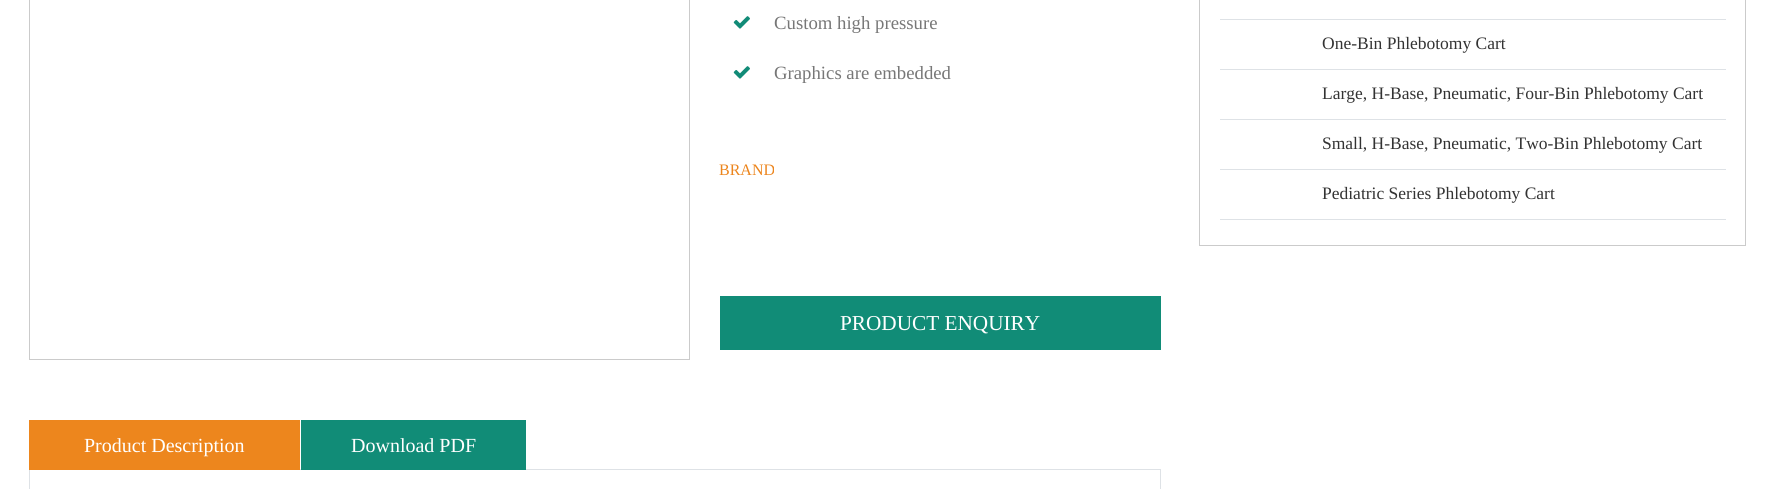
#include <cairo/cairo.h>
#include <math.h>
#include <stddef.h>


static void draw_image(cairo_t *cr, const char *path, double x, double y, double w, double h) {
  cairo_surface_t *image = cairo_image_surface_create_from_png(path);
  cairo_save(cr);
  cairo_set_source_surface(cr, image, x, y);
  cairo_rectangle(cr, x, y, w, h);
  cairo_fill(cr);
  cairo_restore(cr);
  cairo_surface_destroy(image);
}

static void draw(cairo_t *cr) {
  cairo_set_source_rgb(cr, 1, 1, 1);
  cairo_paint(cr);
  cairo_rectangle(cr, 29.5, -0.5, 660, 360);
  cairo_set_source_rgb(cr, 203 / 255.0, 203 / 255.0, 203 / 255.0);
  cairo_set_line_width(cr, 1);
  cairo_stroke(cr);
  draw_image(cr, "images/1.png", 733, 16, 17, 13);
  draw_image(cr, "images/1.png", 733, 66, 17, 13);
  cairo_set_source_rgb(cr, 17 / 255.0, 140 / 255.0, 119 / 255.0);
  cairo_rectangle(cr, 720, 296, 441, 54);
  cairo_fill(cr);
  cairo_rectangle(cr, 29.5, 469.5, 1131, 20);
  cairo_set_source_rgb(cr, 222 / 255.0, 226 / 255.0, 230 / 255.0);
  cairo_stroke(cr);
  cairo_set_source_rgb(cr, 237 / 255.0, 134 / 255.0, 29 / 255.0);
  cairo_rectangle(cr, 29, 420, 271, 50);
  cairo_fill(cr);
  cairo_set_source_rgb(cr, 17 / 255.0, 140 / 255.0, 119 / 255.0);
  cairo_rectangle(cr, 301, 420, 225, 50);
  cairo_fill(cr);
  cairo_rectangle(cr, 1199.5, -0.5, 546, 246);
  cairo_set_source_rgb(cr, 203 / 255.0, 203 / 255.0, 203 / 255.0);
  cairo_stroke(cr);
  cairo_set_source_rgb(cr, 222 / 255.0, 226 / 255.0, 230 / 255.0);
  cairo_rectangle(cr, 1220, 19, 506, 1);
  cairo_fill(cr);
  cairo_rectangle(cr, 1220, 69, 506, 1);
  cairo_fill(cr);
  cairo_rectangle(cr, 1220, 119, 506, 1);
  cairo_fill(cr);
  cairo_rectangle(cr, 1220, 169, 506, 1);
  cairo_fill(cr);
  cairo_rectangle(cr, 1220, 219, 506, 1);
  cairo_fill(cr);
  cairo_select_font_face(cr, "Liberation Serif", CAIRO_FONT_SLANT_NORMAL, CAIRO_FONT_WEIGHT_NORMAL);
  cairo_set_font_size(cr, 18.75);
  cairo_set_source_rgb(cr, 119 / 255.0, 119 / 255.0, 119 / 255.0);
  cairo_move_to(cr, 774, 29);
  cairo_show_text(cr, "Custom high pressure");
  cairo_move_to(cr, 774, 79);
  cairo_show_text(cr, "Graphics are embedded");
  cairo_set_font_size(cr, 16);
  cairo_set_source_rgb(cr, 236 / 255.0, 133 / 255.0, 29 / 255.0);
  cairo_move_to(cr, 719, 175);
  cairo_show_text(cr, "BRAND");
  cairo_set_font_size(cr, 21.25);
  cairo_set_source_rgb(cr, 1, 1, 1);
  cairo_move_to(cr, 840, 330);
  cairo_show_text(cr, "PRODUCT ENQUIRY");
  cairo_set_font_size(cr, 20);
  cairo_move_to(cr, 84, 452);
  cairo_show_text(cr, "Product Description");
  cairo_move_to(cr, 351, 452);
  cairo_show_text(cr, "Download PDF");
  cairo_set_font_size(cr, 17.5);
  cairo_set_source_rgb(cr, 51 / 255.0, 51 / 255.0, 51 / 255.0);
  cairo_move_to(cr, 1322, 49);
  cairo_show_text(cr, "One-Bin Phlebotomy Cart");
  cairo_move_to(cr, 1322, 99);
  cairo_show_text(cr, "Large, H-Base, Pneumatic, Four-Bin Phlebotomy Cart");
  cairo_move_to(cr, 1322, 149);
  cairo_show_text(cr, "Small, H-Base, Pneumatic, Two-Bin Phlebotomy Cart");
  cairo_move_to(cr, 1322, 199);
  cairo_show_text(cr, "Pediatric Series Phlebotomy Cart");
}

int main(void) {
  cairo_surface_t *surface = cairo_image_surface_create(CAIRO_FORMAT_RGB24, 1775, 489);
  cairo_t *cr = cairo_create(surface);
  cairo_font_options_t *options = cairo_font_options_create();
  cairo_font_options_set_hint_metrics(options, CAIRO_HINT_METRICS_OFF);
  cairo_font_options_set_hint_style(options, CAIRO_HINT_STYLE_NONE);
  cairo_set_font_options(cr, options);
  cairo_set_miter_limit(cr, 4);
  draw(cr);
  cairo_surface_write_to_png(surface, "out.png");
  cairo_font_options_destroy(options);
  cairo_destroy(cr);
  cairo_surface_destroy(surface);
  return 0;
}
